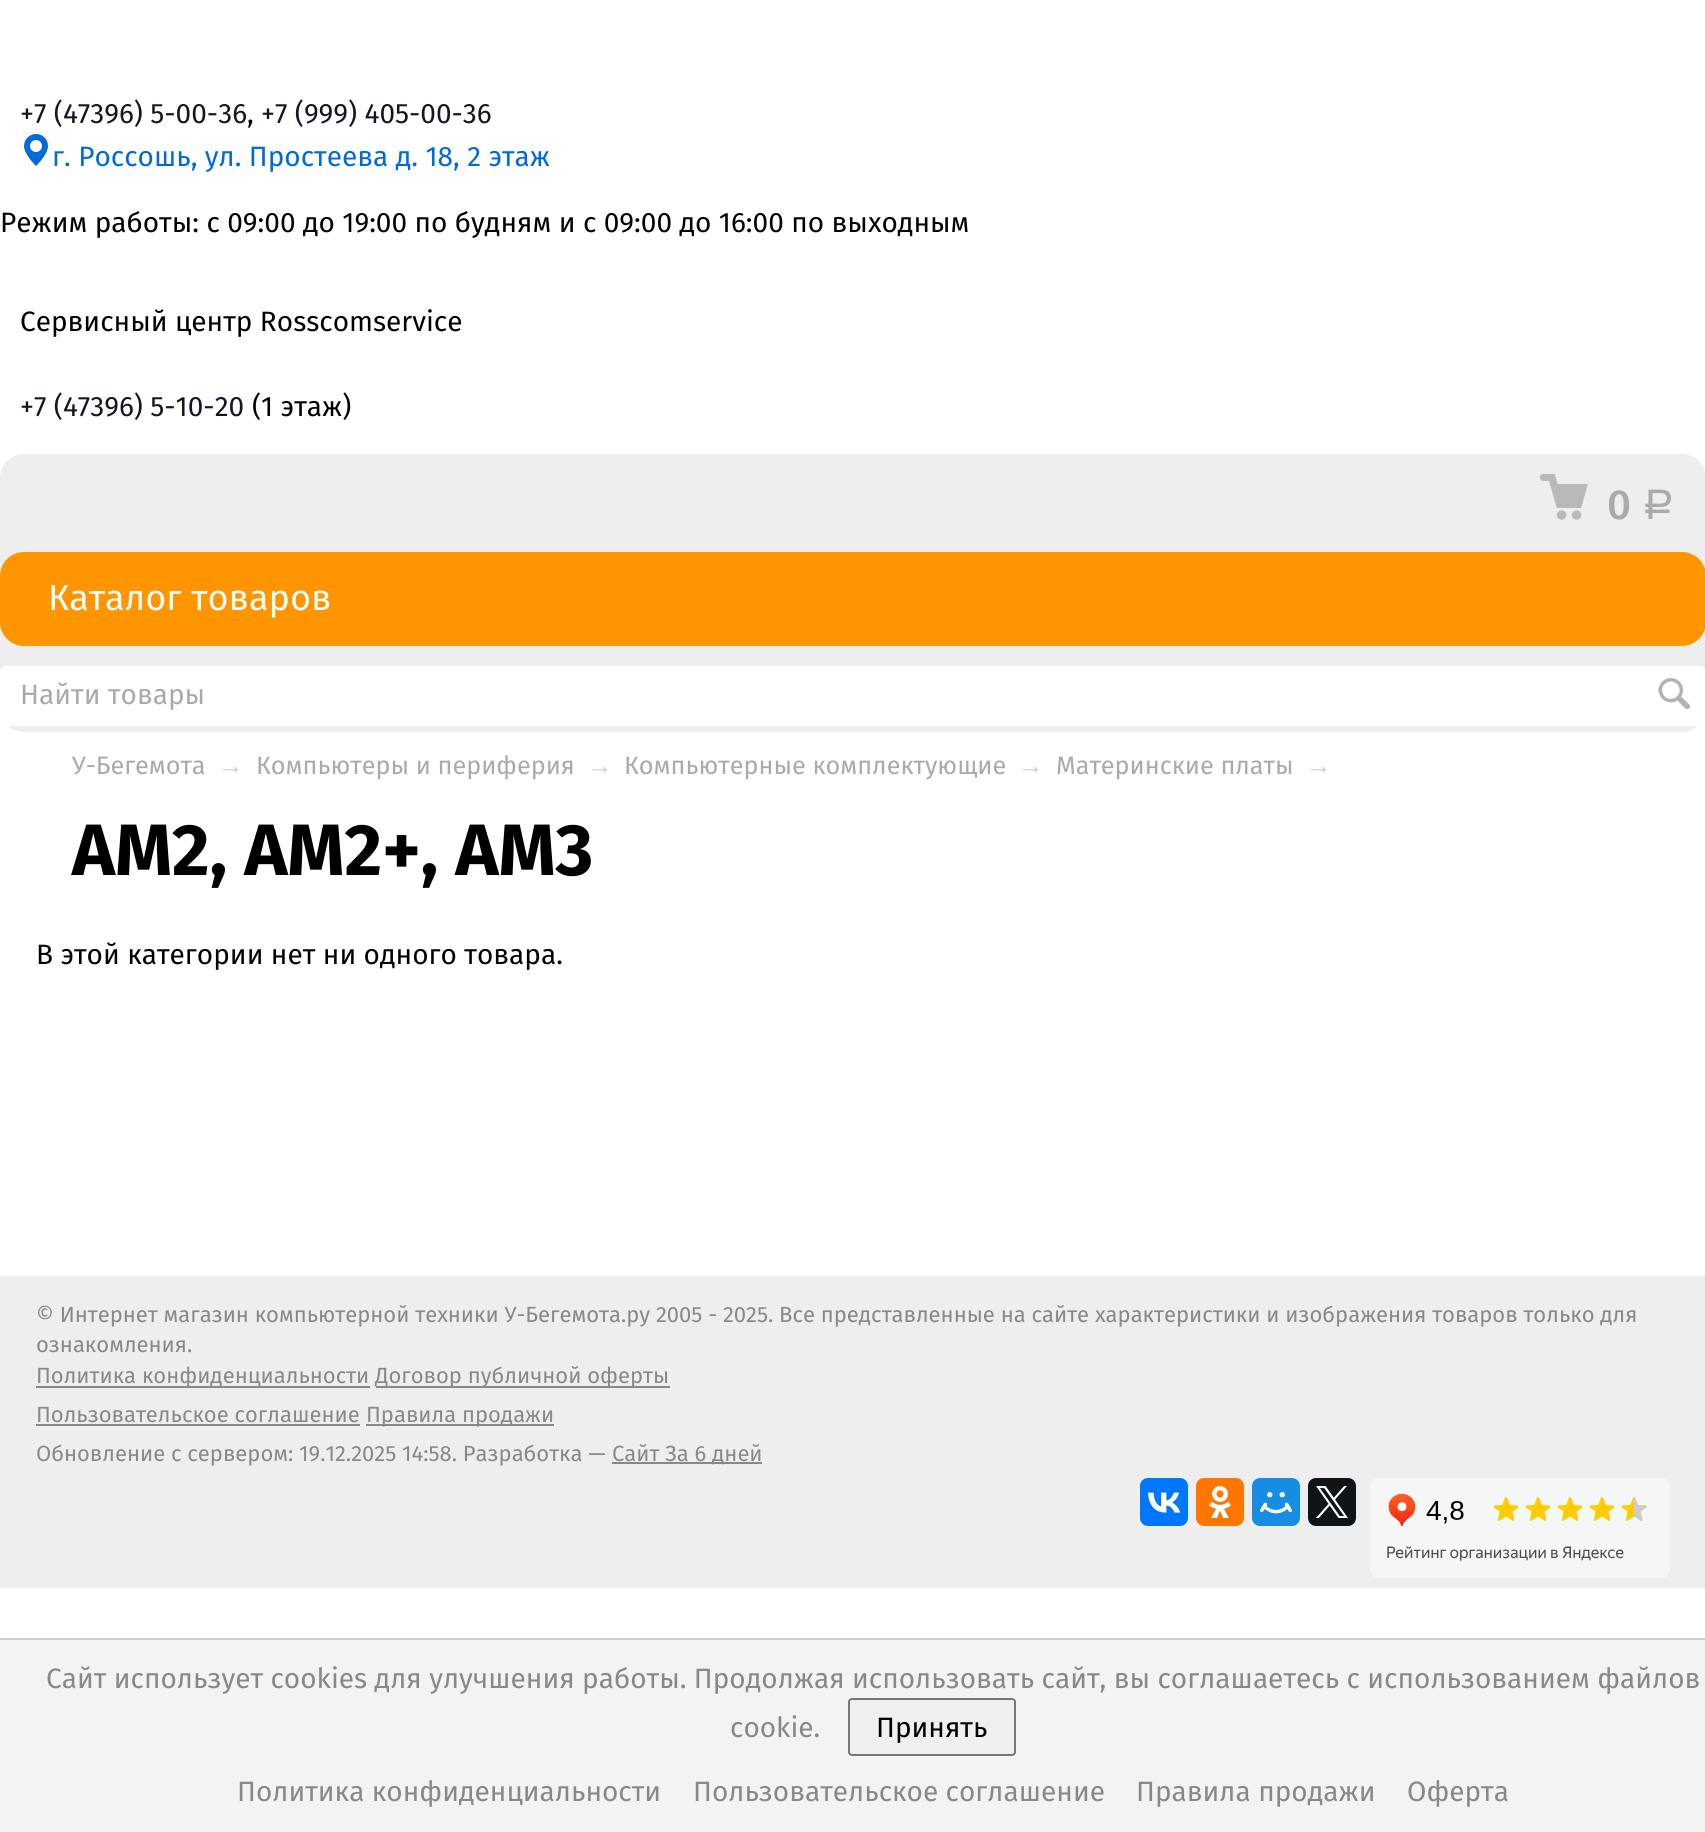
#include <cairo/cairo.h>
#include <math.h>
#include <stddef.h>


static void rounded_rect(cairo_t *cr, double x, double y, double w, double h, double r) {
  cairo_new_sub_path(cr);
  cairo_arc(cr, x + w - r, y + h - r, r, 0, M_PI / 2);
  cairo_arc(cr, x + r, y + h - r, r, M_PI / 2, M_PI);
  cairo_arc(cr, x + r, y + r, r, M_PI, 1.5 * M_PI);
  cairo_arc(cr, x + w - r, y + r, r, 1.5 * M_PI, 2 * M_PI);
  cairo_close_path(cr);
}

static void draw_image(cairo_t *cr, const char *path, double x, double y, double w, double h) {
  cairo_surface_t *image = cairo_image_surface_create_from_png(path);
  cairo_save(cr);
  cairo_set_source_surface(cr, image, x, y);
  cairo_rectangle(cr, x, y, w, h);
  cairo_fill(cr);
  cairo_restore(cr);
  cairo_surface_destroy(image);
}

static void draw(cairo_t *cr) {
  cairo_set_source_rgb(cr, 1, 1, 1);
  cairo_paint(cr);
  draw_image(cr, "images/1.png", 24, 134, 24, 32);
  cairo_set_source_rgb(cr, 238 / 255.0, 238 / 255.0, 238 / 255.0);
  rounded_rect(cr, 0, 454, 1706, 278, 24);
  cairo_fill(cr);
  draw_image(cr, "images/2.png", 1540, 474, 48, 46);
  cairo_set_source_rgb(cr, 1, 150 / 255.0, 1 / 255.0);
  rounded_rect(cr, 0, 552, 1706, 94, 24);
  cairo_fill(cr);
  cairo_set_source_rgb(cr, 1, 1, 1);
  rounded_rect(cr, 0, 666, 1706, 60, 6);
  cairo_fill(cr);
  draw_image(cr, "images/3.png", 1658, 678, 32, 31);
  cairo_set_source_rgb(cr, 238 / 255.0, 238 / 255.0, 238 / 255.0);
  cairo_rectangle(cr, 0, 1276, 1705, 312);
  cairo_fill(cr);
  cairo_set_source_rgb(cr, 136 / 255.0, 136 / 255.0, 136 / 255.0);
  cairo_rectangle(cr, 36, 1386, 334, 2);
  cairo_fill(cr);
  cairo_rectangle(cr, 376, 1386, 294, 2);
  cairo_fill(cr);
  cairo_rectangle(cr, 36, 1424, 324, 2);
  cairo_fill(cr);
  cairo_rectangle(cr, 366, 1424, 188, 2);
  cairo_fill(cr);
  cairo_rectangle(cr, 612, 1462, 150, 2);
  cairo_fill(cr);
  cairo_set_source_rgb(cr, 0, 119 / 255.0, 1);
  rounded_rect(cr, 1140, 1478, 48, 48, 8);
  cairo_fill(cr);
  draw_image(cr, "images/4.png", 1148, 1492, 33, 21);
  cairo_set_source_rgb(cr, 1, 119 / 255.0, 0);
  rounded_rect(cr, 1196, 1478, 48, 48, 8);
  cairo_fill(cr);
  draw_image(cr, "images/5.png", 1209, 1486, 22, 32);
  cairo_set_source_rgb(cr, 22 / 255.0, 141 / 255.0, 226 / 255.0);
  rounded_rect(cr, 1252, 1478, 48, 48, 8);
  cairo_fill(cr);
  draw_image(cr, "images/6.png", 1260, 1492, 32, 22);
  cairo_set_source_rgb(cr, 15 / 255.0, 20 / 255.0, 25 / 255.0);
  rounded_rect(cr, 1308, 1478, 48, 48, 8);
  cairo_fill(cr);
  draw_image(cr, "images/7.png", 1316, 1486, 32, 32);
  draw_image(cr, "images/8.png", 1370, 1478, 300, 100);
  cairo_set_source_rgb(cr, 243 / 255.0, 243 / 255.0, 243 / 255.0);
  cairo_rectangle(cr, 0, 1640, 1705, 192);
  cairo_fill(cr);
  cairo_set_source_rgb(cr, 204 / 255.0, 204 / 255.0, 204 / 255.0);
  cairo_rectangle(cr, 0, 1638, 1705, 2);
  cairo_fill(cr);
  cairo_set_source_rgb(cr, 239 / 255.0, 239 / 255.0, 239 / 255.0);
  rounded_rect(cr, 849, 1699, 166, 56, 3);
  cairo_fill_preserve(cr);
  cairo_set_source_rgb(cr, 118 / 255.0, 118 / 255.0, 118 / 255.0);
  cairo_stroke(cr);
  cairo_select_font_face(cr, "Fira Sans", CAIRO_FONT_SLANT_NORMAL, CAIRO_FONT_WEIGHT_NORMAL);
  cairo_set_font_size(cr, 28);
  cairo_set_source_rgb(cr, 21 / 255.0, 21 / 255.0, 40 / 255.0);
  cairo_move_to(cr, 20, 123);
  cairo_show_text(cr, "+7 (47396) 5-00-36");
  cairo_set_source_rgb(cr, 0, 0, 0);
  cairo_move_to(cr, 247, 123);
  cairo_show_text(cr, ",");
  cairo_set_source_rgb(cr, 21 / 255.0, 21 / 255.0, 40 / 255.0);
  cairo_move_to(cr, 261, 123);
  cairo_show_text(cr, "+7 (999) 405-00-36");
  cairo_set_source_rgb(cr, 0, 107 / 255.0, 216 / 255.0);
  cairo_move_to(cr, 52, 166);
  cairo_show_text(cr, "г. Россошь, ул. Простеева д. 18, 2 этаж");
  cairo_set_source_rgb(cr, 0, 0, 0);
  cairo_move_to(cr, 0, 232);
  cairo_show_text(cr, "Режим работы: с 09:00 до 19:00 по будням и с 09:00 до 16:00 по выходным");
  cairo_move_to(cr, 20, 331);
  cairo_show_text(cr, "Сервисный центр Rosscomservice");
  cairo_set_source_rgb(cr, 21 / 255.0, 21 / 255.0, 40 / 255.0);
  cairo_move_to(cr, 20, 416);
  cairo_show_text(cr, "+7 (47396) 5-10-20");
  cairo_set_source_rgb(cr, 0, 0, 0);
  cairo_move_to(cr, 252, 416);
  cairo_show_text(cr, "(1 этаж)");
  cairo_select_font_face(cr, "Fira Sans Medium", CAIRO_FONT_SLANT_NORMAL, CAIRO_FONT_WEIGHT_NORMAL);
  cairo_set_font_size(cr, 42);
  cairo_set_source_rgb(cr, 170 / 255.0, 170 / 255.0, 170 / 255.0);
  cairo_move_to(cr, 1607, 519);
  cairo_show_text(cr, "0");
  cairo_select_font_face(cr, "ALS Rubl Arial", CAIRO_FONT_SLANT_NORMAL, CAIRO_FONT_WEIGHT_NORMAL);
  cairo_move_to(cr, 1642, 519);
  cairo_show_text(cr, "Р");
  cairo_select_font_face(cr, "Fira Sans", CAIRO_FONT_SLANT_NORMAL, CAIRO_FONT_WEIGHT_NORMAL);
  cairo_set_font_size(cr, 36);
  cairo_set_source_rgb(cr, 1, 1, 1);
  cairo_move_to(cr, 48, 610);
  cairo_show_text(cr, "Каталог товаров");
  cairo_set_font_size(cr, 28);
  cairo_set_source_rgb(cr, 170 / 255.0, 170 / 255.0, 170 / 255.0);
  cairo_move_to(cr, 20, 704);
  cairo_show_text(cr, "Найти товары");
  cairo_set_font_size(cr, 25.25);
  cairo_move_to(cr, 72, 774);
  cairo_show_text(cr, "У-Бегемота");
  cairo_select_font_face(cr, "Liberation Sans", CAIRO_FONT_SLANT_NORMAL, CAIRO_FONT_WEIGHT_NORMAL);
  cairo_set_source_rgb(cr, 204 / 255.0, 204 / 255.0, 204 / 255.0);
  cairo_move_to(cr, 218, 774);
  cairo_show_text(cr, "→");
  cairo_select_font_face(cr, "Fira Sans", CAIRO_FONT_SLANT_NORMAL, CAIRO_FONT_WEIGHT_NORMAL);
  cairo_set_source_rgb(cr, 170 / 255.0, 170 / 255.0, 170 / 255.0);
  cairo_move_to(cr, 256, 774);
  cairo_show_text(cr, "Компьютеры и периферия");
  cairo_select_font_face(cr, "Liberation Sans", CAIRO_FONT_SLANT_NORMAL, CAIRO_FONT_WEIGHT_NORMAL);
  cairo_set_source_rgb(cr, 204 / 255.0, 204 / 255.0, 204 / 255.0);
  cairo_move_to(cr, 587, 774);
  cairo_show_text(cr, "→");
  cairo_select_font_face(cr, "Fira Sans", CAIRO_FONT_SLANT_NORMAL, CAIRO_FONT_WEIGHT_NORMAL);
  cairo_set_source_rgb(cr, 170 / 255.0, 170 / 255.0, 170 / 255.0);
  cairo_move_to(cr, 624, 774);
  cairo_show_text(cr, "Компьютерные комплектующие");
  cairo_select_font_face(cr, "Liberation Sans", CAIRO_FONT_SLANT_NORMAL, CAIRO_FONT_WEIGHT_NORMAL);
  cairo_set_source_rgb(cr, 204 / 255.0, 204 / 255.0, 204 / 255.0);
  cairo_move_to(cr, 1018, 774);
  cairo_show_text(cr, "→");
  cairo_select_font_face(cr, "Fira Sans", CAIRO_FONT_SLANT_NORMAL, CAIRO_FONT_WEIGHT_NORMAL);
  cairo_set_source_rgb(cr, 170 / 255.0, 170 / 255.0, 170 / 255.0);
  cairo_move_to(cr, 1056, 774);
  cairo_show_text(cr, "Материнские платы");
  cairo_select_font_face(cr, "Liberation Sans", CAIRO_FONT_SLANT_NORMAL, CAIRO_FONT_WEIGHT_NORMAL);
  cairo_set_source_rgb(cr, 204 / 255.0, 204 / 255.0, 204 / 255.0);
  cairo_move_to(cr, 1306, 774);
  cairo_show_text(cr, "→");
  cairo_select_font_face(cr, "Fira Sans", CAIRO_FONT_SLANT_NORMAL, CAIRO_FONT_WEIGHT_BOLD);
  cairo_set_font_size(cr, 72.75);
  cairo_set_source_rgb(cr, 0, 0, 0);
  cairo_move_to(cr, 72, 875);
  cairo_show_text(cr, "AM2, AM2+, AM3");
  cairo_select_font_face(cr, "Fira Sans", CAIRO_FONT_SLANT_NORMAL, CAIRO_FONT_WEIGHT_NORMAL);
  cairo_set_font_size(cr, 28);
  cairo_move_to(cr, 36, 964);
  cairo_show_text(cr, "В этой категории нет ни одного товара.");
  cairo_set_font_size(cr, 22);
  cairo_set_source_rgb(cr, 136 / 255.0, 136 / 255.0, 136 / 255.0);
  cairo_move_to(cr, 36, 1322);
  cairo_show_text(cr, "© Интернет магазин компьютерной техники У-Бегемота.ру 2005 - 2025. Все представленные на сайте характеристики и изображения товаров только для");
  cairo_move_to(cr, 36, 1352);
  cairo_show_text(cr, "ознакомления.");
  cairo_move_to(cr, 36, 1383);
  cairo_show_text(cr, "Политика конфиденциальности");
  cairo_move_to(cr, 375, 1383);
  cairo_show_text(cr, "Договор публичной оферты");
  cairo_move_to(cr, 36, 1422);
  cairo_show_text(cr, "Пользовательское соглашение");
  cairo_move_to(cr, 366, 1422);
  cairo_show_text(cr, "Правила продажи");
  cairo_move_to(cr, 36, 1461);
  cairo_show_text(cr, "Обновление с сервером: 19.12.2025 14:58. Разработка —");
  cairo_move_to(cr, 612, 1461);
  cairo_show_text(cr, "Сайт За 6 дней");
  cairo_set_font_size(cr, 28);
  cairo_move_to(cr, 46, 1688);
  cairo_show_text(cr, "Сайт использует cookies для улучшения работы. Продолжая использовать сайт, вы соглашаетесь с использованием файлов");
  cairo_move_to(cr, 730, 1737);
  cairo_show_text(cr, "cookie.");
  cairo_set_source_rgb(cr, 0, 0, 0);
  cairo_move_to(cr, 876, 1737);
  cairo_show_text(cr, "Принять");
  cairo_set_source_rgb(cr, 136 / 255.0, 136 / 255.0, 136 / 255.0);
  cairo_move_to(cr, 237, 1801);
  cairo_show_text(cr, "Политика конфиденциальности");
  cairo_move_to(cr, 693, 1801);
  cairo_show_text(cr, "Пользовательское соглашение");
  cairo_move_to(cr, 1136, 1801);
  cairo_show_text(cr, "Правила продажи");
  cairo_move_to(cr, 1407, 1801);
  cairo_show_text(cr, "Оферта");
}

int main(void) {
  cairo_surface_t *surface = cairo_image_surface_create(CAIRO_FORMAT_RGB24, 1705, 1832);
  cairo_t *cr = cairo_create(surface);
  cairo_font_options_t *options = cairo_font_options_create();
  cairo_font_options_set_hint_metrics(options, CAIRO_HINT_METRICS_OFF);
  cairo_font_options_set_hint_style(options, CAIRO_HINT_STYLE_NONE);
  cairo_set_font_options(cr, options);
  cairo_set_miter_limit(cr, 4);
  draw(cr);
  cairo_surface_write_to_png(surface, "out.png");
  cairo_font_options_destroy(options);
  cairo_destroy(cr);
  cairo_surface_destroy(surface);
  return 0;
}
